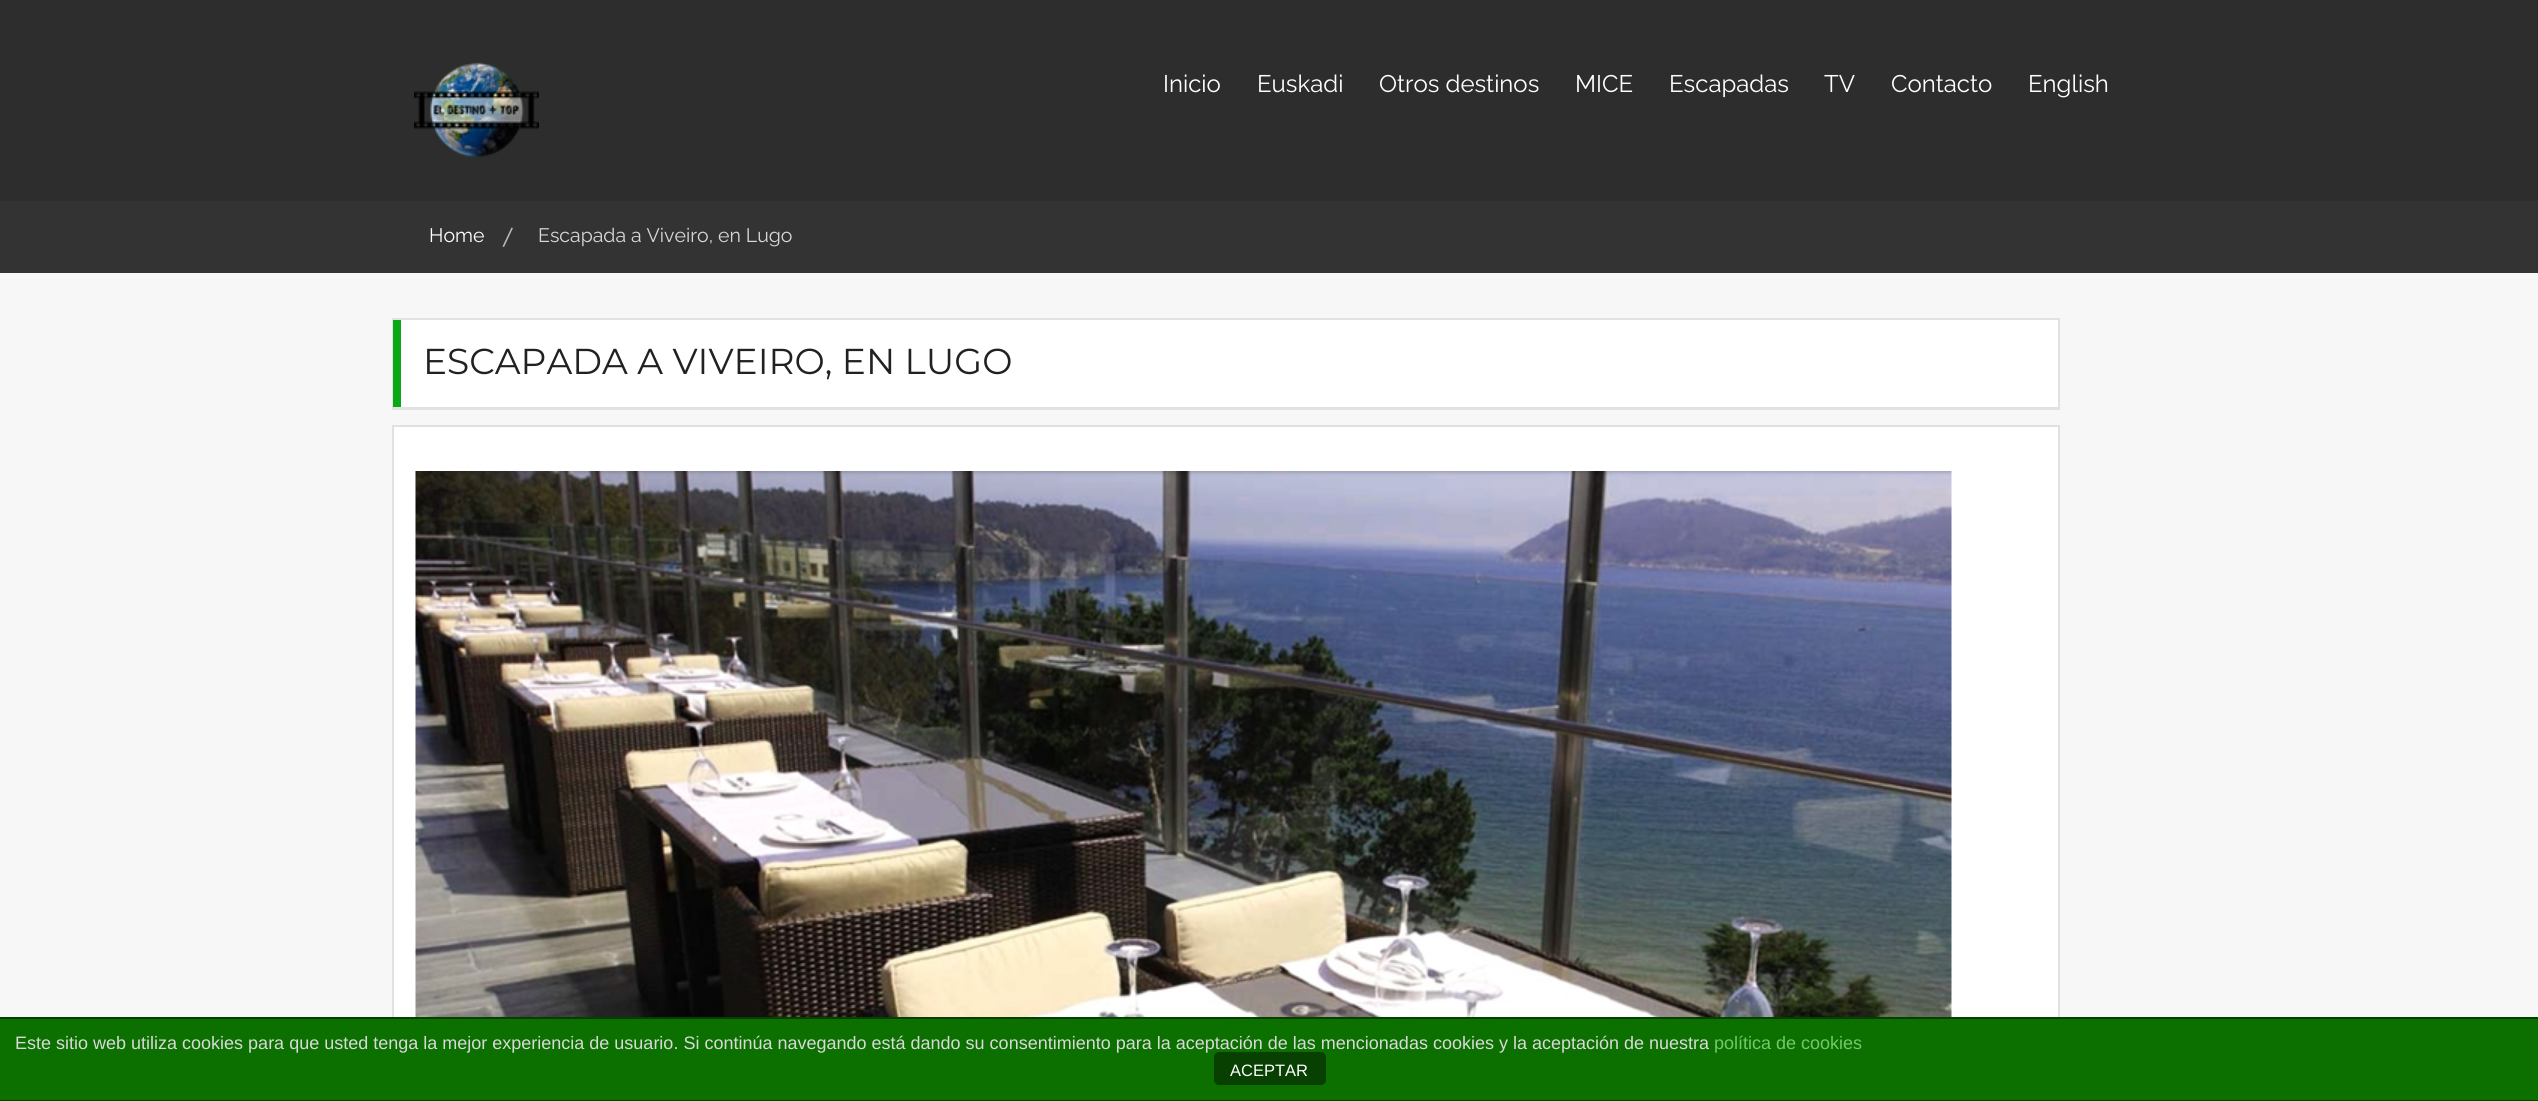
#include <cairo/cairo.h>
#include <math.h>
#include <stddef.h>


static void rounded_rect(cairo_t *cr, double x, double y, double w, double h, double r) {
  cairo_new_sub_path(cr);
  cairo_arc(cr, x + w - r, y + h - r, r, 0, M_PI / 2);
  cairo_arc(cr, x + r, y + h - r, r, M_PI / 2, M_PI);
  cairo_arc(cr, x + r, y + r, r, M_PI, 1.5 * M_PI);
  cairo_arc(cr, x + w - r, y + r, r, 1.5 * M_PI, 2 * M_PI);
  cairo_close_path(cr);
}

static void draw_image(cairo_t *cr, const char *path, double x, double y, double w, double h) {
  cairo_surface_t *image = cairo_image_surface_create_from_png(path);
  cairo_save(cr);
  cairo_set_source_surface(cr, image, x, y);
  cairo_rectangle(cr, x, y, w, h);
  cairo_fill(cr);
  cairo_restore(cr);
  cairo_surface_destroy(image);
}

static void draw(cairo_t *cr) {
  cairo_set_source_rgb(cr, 247 / 255.0, 247 / 255.0, 247 / 255.0);
  cairo_paint(cr);
  cairo_set_source_rgb(cr, 45 / 255.0, 45 / 255.0, 45 / 255.0);
  cairo_rectangle(cr, 0, 0, 2538, 201);
  cairo_fill(cr);
  draw_image(cr, "images/1.png", 414, 62, 125, 96);
  cairo_set_source_rgb(cr, 51 / 255.0, 51 / 255.0, 51 / 255.0);
  cairo_rectangle(cr, 0, 201, 2538, 72);
  cairo_fill(cr);
  cairo_set_source_rgb(cr, 186 / 255.0, 186 / 255.0, 186 / 255.0);
  cairo_new_path(cr);
  cairo_move_to(cr, 511.5, 227.5);
  cairo_line_to(cr, 513, 228);
  cairo_line_to(cr, 504, 247);
  cairo_line_to(cr, 502.5, 246.5);
  cairo_close_path(cr);
  cairo_fill(cr);
  cairo_set_source_rgb(cr, 1, 1, 1);
  cairo_rectangle(cr, 401, 320, 1657, 87);
  cairo_fill(cr);
  cairo_set_source_rgb(cr, 225 / 255.0, 225 / 255.0, 225 / 255.0);
  cairo_rectangle(cr, 392, 318, 1668, 2);
  cairo_fill(cr);
  cairo_rectangle(cr, 2058, 318, 2, 92);
  cairo_fill(cr);
  cairo_rectangle(cr, 392, 407, 1668, 3);
  cairo_fill(cr);
  cairo_rectangle(cr, 392, 318, 2, 92);
  cairo_fill(cr);
  cairo_set_source_rgb(cr, 10 / 255.0, 168 / 255.0, 23 / 255.0);
  cairo_rectangle(cr, 393, 320, 8, 87);
  cairo_fill(cr);
  cairo_set_source_rgb(cr, 1, 1, 1);
  cairo_rectangle(cr, 394, 427, 1664, 590);
  cairo_fill(cr);
  cairo_rectangle(cr, 393, 426, 1666, 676);
  cairo_set_source_rgb(cr, 225 / 255.0, 225 / 255.0, 225 / 255.0);
  cairo_stroke(cr);
  draw_image(cr, "images/2.png", 415, 471, 1537, 546);
  cairo_set_source_rgb(cr, 11 / 255.0, 112 / 255.0, 0);
  cairo_rectangle(cr, 0, 1019, 2538, 81);
  cairo_fill(cr);
  cairo_set_source_rgb(cr, 6 / 255.0, 64 / 255.0, 0);
  cairo_rectangle(cr, 0, 1017, 2538, 2);
  cairo_fill(cr);
  cairo_rectangle(cr, 0, 1100, 2538, 1);
  cairo_fill(cr);
  cairo_set_source_rgb(cr, 7 / 255.0, 64 / 255.0, 0);
  rounded_rect(cr, 1214, 1052, 112, 33, 5);
  cairo_fill(cr);
  cairo_select_font_face(cr, "Raleway", CAIRO_FONT_SLANT_NORMAL, CAIRO_FONT_WEIGHT_NORMAL);
  cairo_set_font_size(cr, 24);
  cairo_set_source_rgb(cr, 1, 1, 1);
  cairo_move_to(cr, 1163, 92);
  cairo_show_text(cr, "Inicio");
  cairo_move_to(cr, 1257, 92);
  cairo_show_text(cr, "Euskadi");
  cairo_move_to(cr, 1379, 92);
  cairo_show_text(cr, "Otros destinos");
  cairo_move_to(cr, 1575, 92);
  cairo_show_text(cr, "MICE");
  cairo_move_to(cr, 1669, 92);
  cairo_show_text(cr, "Escapadas");
  cairo_move_to(cr, 1824, 92);
  cairo_show_text(cr, "TV");
  cairo_move_to(cr, 1891, 92);
  cairo_show_text(cr, "Contacto");
  cairo_move_to(cr, 2028, 92);
  cairo_show_text(cr, "English");
  cairo_set_font_size(cr, 19.5);
  cairo_move_to(cr, 429, 242);
  cairo_show_text(cr, "Home");
  cairo_set_source_rgb(cr, 217 / 255.0, 217 / 255.0, 217 / 255.0);
  cairo_move_to(cr, 538, 242);
  cairo_show_text(cr, "Escapada a Viveiro, en Lugo");
  cairo_select_font_face(cr, "Montserrat", CAIRO_FONT_SLANT_NORMAL, CAIRO_FONT_WEIGHT_NORMAL);
  cairo_set_font_size(cr, 36);
  cairo_set_source_rgb(cr, 33 / 255.0, 33 / 255.0, 33 / 255.0);
  cairo_move_to(cr, 423, 374);
  cairo_show_text(cr, "ESCAPADA A VIVEIRO, EN LUGO");
  cairo_select_font_face(cr, "Liberation Sans", CAIRO_FONT_SLANT_NORMAL, CAIRO_FONT_WEIGHT_NORMAL);
  cairo_set_font_size(cr, 18);
  cairo_set_source_rgb(cr, 217 / 255.0, 217 / 255.0, 217 / 255.0);
  cairo_move_to(cr, 15, 1049);
  cairo_show_text(cr, "Este sitio web utiliza cookies para que usted tenga la mejor experiencia de usuario. Si continúa navegando está dando su consentimiento para la aceptación de las mencionadas cookies y la aceptación de nuestra");
  cairo_set_source_rgb(cr, 117 / 255.0, 199 / 255.0, 108 / 255.0);
  cairo_move_to(cr, 1714, 1049);
  cairo_show_text(cr, "política de cookies");
  cairo_set_font_size(cr, 16.5);
  cairo_set_source_rgb(cr, 1, 1, 1);
  cairo_move_to(cr, 1230, 1076);
  cairo_show_text(cr, "ACEPTAR");
}

int main(void) {
  cairo_surface_t *surface = cairo_image_surface_create(CAIRO_FORMAT_RGB24, 2538, 1101);
  cairo_t *cr = cairo_create(surface);
  cairo_font_options_t *options = cairo_font_options_create();
  cairo_font_options_set_hint_metrics(options, CAIRO_HINT_METRICS_OFF);
  cairo_font_options_set_hint_style(options, CAIRO_HINT_STYLE_NONE);
  cairo_set_font_options(cr, options);
  cairo_set_miter_limit(cr, 4);
  draw(cr);
  cairo_surface_write_to_png(surface, "out.png");
  cairo_font_options_destroy(options);
  cairo_destroy(cr);
  cairo_surface_destroy(surface);
  return 0;
}
